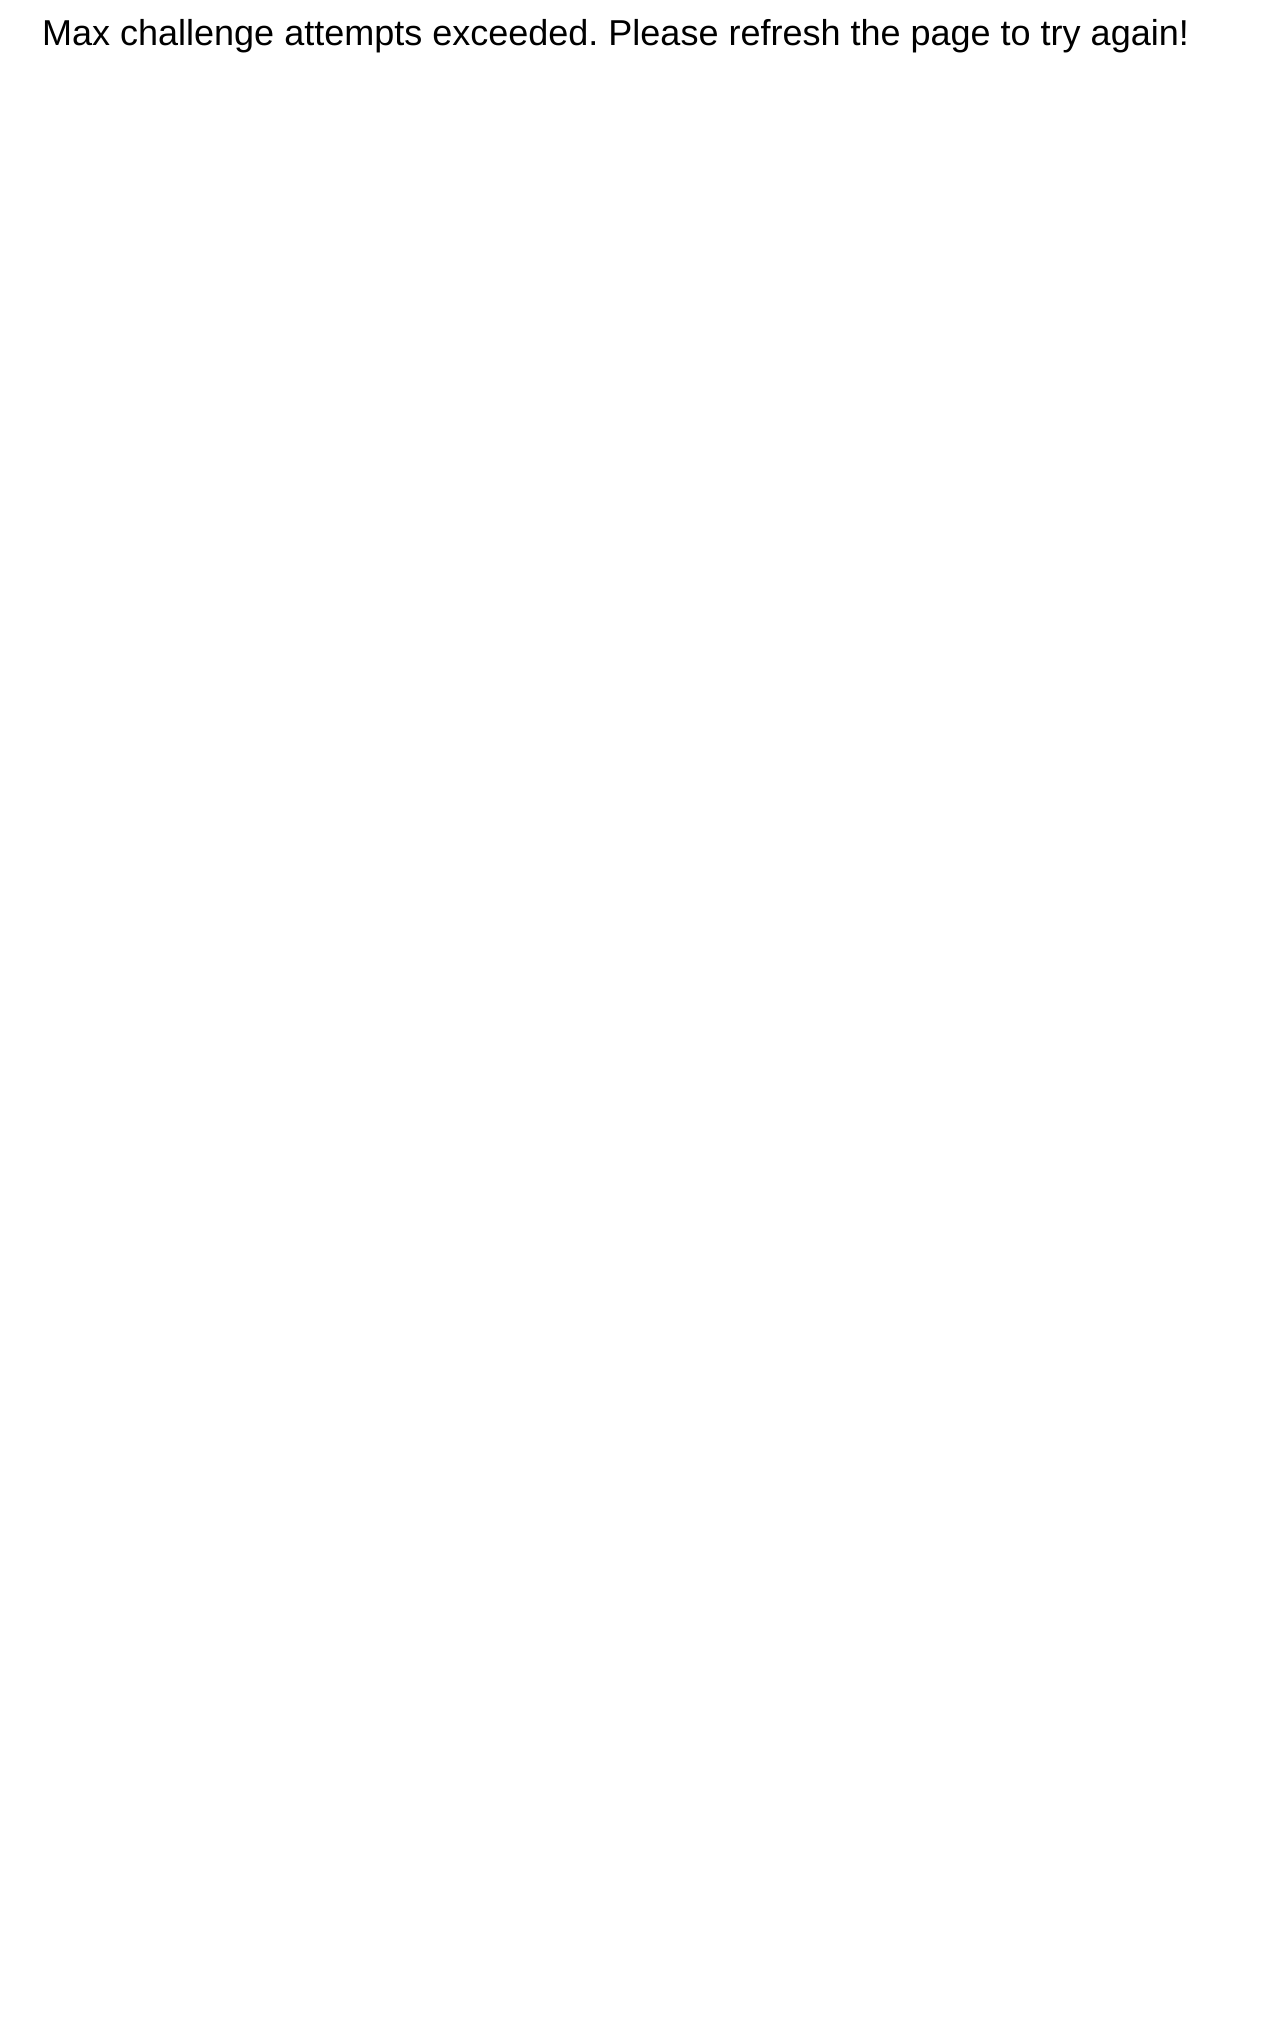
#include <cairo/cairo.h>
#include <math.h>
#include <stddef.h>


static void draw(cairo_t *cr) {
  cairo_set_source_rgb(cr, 1, 1, 1);
  cairo_paint(cr);
  cairo_select_font_face(cr, "Liberation Sans", CAIRO_FONT_SLANT_NORMAL, CAIRO_FONT_WEIGHT_NORMAL);
  cairo_set_font_size(cr, 36);
  cairo_set_source_rgb(cr, 0, 0, 0);
  cairo_move_to(cr, 42, 45);
  cairo_show_text(cr, "Max challenge attempts exceeded. Please refresh the page to try again!");
}

int main(void) {
  cairo_surface_t *surface = cairo_image_surface_create(CAIRO_FORMAT_RGB24, 1287, 2025);
  cairo_t *cr = cairo_create(surface);
  cairo_font_options_t *options = cairo_font_options_create();
  cairo_font_options_set_hint_metrics(options, CAIRO_HINT_METRICS_OFF);
  cairo_font_options_set_hint_style(options, CAIRO_HINT_STYLE_NONE);
  cairo_set_font_options(cr, options);
  cairo_set_miter_limit(cr, 4);
  draw(cr);
  cairo_surface_write_to_png(surface, "out.png");
  cairo_font_options_destroy(options);
  cairo_destroy(cr);
  cairo_surface_destroy(surface);
  return 0;
}
